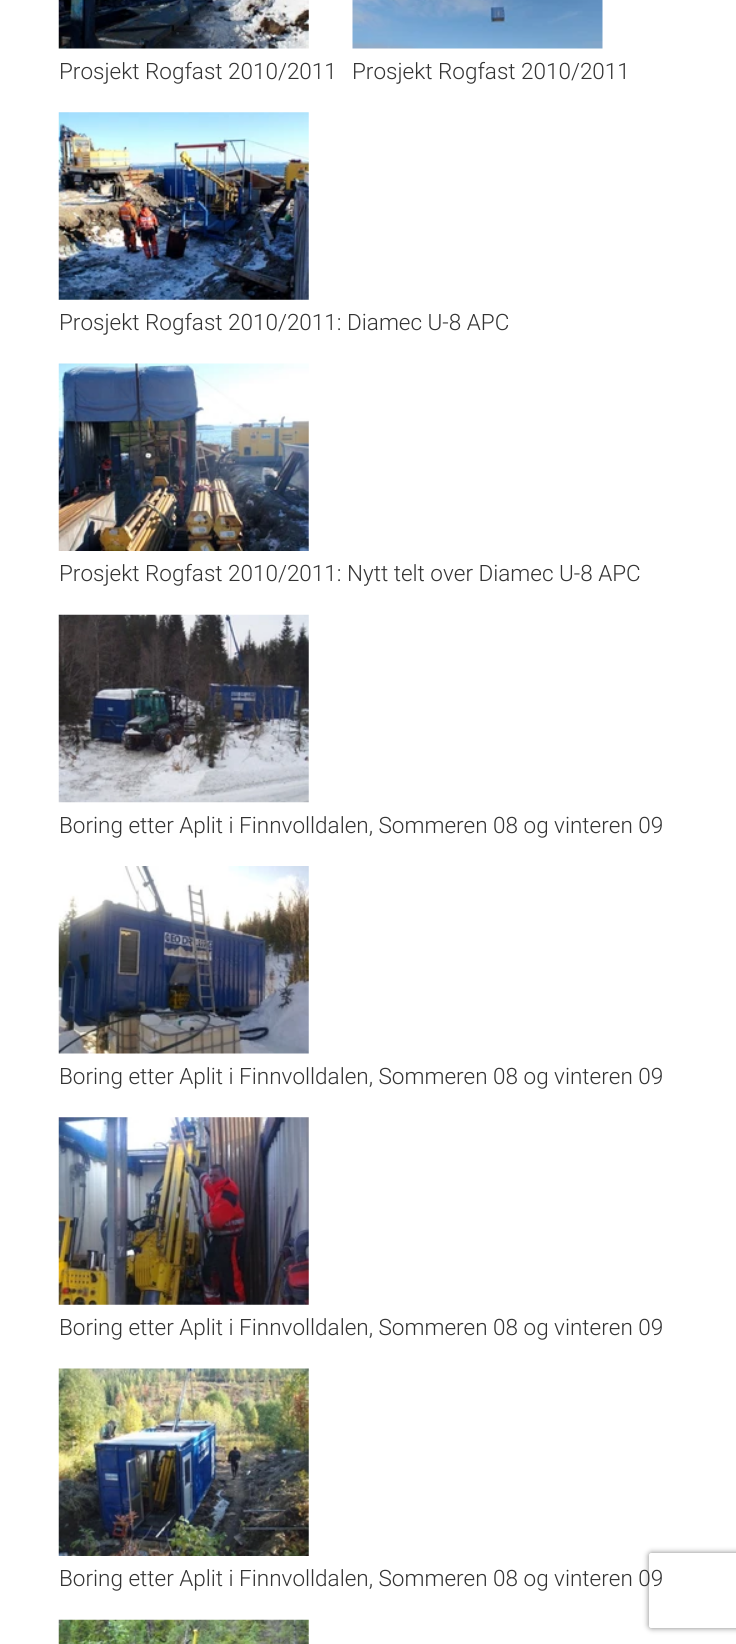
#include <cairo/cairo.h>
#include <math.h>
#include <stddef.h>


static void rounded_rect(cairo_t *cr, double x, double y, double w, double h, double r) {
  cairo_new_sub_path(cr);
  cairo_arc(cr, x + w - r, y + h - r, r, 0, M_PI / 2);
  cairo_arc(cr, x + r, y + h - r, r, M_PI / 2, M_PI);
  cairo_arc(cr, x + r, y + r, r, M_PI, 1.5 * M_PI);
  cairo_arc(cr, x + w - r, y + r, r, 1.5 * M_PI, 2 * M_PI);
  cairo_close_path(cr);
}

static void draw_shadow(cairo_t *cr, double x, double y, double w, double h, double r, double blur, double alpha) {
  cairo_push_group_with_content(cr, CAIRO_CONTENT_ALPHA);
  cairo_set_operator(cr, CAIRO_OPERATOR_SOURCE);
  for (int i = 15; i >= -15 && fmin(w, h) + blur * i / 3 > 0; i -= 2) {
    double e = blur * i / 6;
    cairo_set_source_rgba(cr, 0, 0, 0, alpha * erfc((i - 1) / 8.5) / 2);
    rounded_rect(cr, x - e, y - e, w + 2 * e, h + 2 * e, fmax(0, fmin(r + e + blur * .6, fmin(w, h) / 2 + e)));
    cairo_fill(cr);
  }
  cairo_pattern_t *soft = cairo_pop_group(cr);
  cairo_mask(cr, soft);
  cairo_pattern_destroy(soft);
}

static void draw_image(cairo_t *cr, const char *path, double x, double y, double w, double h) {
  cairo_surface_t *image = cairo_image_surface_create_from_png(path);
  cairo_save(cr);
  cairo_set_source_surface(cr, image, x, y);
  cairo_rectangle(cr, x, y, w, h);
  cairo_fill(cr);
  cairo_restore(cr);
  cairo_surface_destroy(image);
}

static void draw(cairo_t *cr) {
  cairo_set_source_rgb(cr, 1, 1, 1);
  cairo_paint(cr);
  draw_image(cr, "images/1.png", 58, 0, 251, 49);
  draw_image(cr, "images/2.png", 352, 0, 251, 49);
  draw_image(cr, "images/3.png", 58, 112, 251, 188);
  draw_image(cr, "images/4.png", 58, 363, 251, 188);
  draw_image(cr, "images/5.png", 58, 614, 251, 189);
  draw_image(cr, "images/6.png", 58, 866, 251, 188);
  draw_image(cr, "images/7.png", 58, 1117, 251, 188);
  draw_image(cr, "images/8.png", 58, 1368, 251, 188);
  draw_image(cr, "images/9.png", 58, 1619, 251, 25);
  cairo_save(cr);
  cairo_set_fill_rule(cr, CAIRO_FILL_RULE_EVEN_ODD);
  cairo_new_path(cr);
  cairo_move_to(cr, 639, 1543);
  cairo_line_to(cr, 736, 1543);
  cairo_line_to(cr, 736, 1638);
  cairo_line_to(cr, 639, 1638);
  cairo_close_path(cr);
  cairo_move_to(cr, 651.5, 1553);
  cairo_line_to(cr, 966.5, 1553);
  cairo_curve_to(cr, 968, 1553, 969, 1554, 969, 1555.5);
  cairo_line_to(cr, 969, 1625.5);
  cairo_curve_to(cr, 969, 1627, 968, 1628, 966.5, 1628);
  cairo_line_to(cr, 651.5, 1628);
  cairo_curve_to(cr, 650, 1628, 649, 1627, 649, 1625.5);
  cairo_line_to(cr, 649, 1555.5);
  cairo_curve_to(cr, 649, 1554, 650, 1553, 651.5, 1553);
  cairo_close_path(cr);
  cairo_clip(cr);
  cairo_set_source_rgb(cr, 128 / 255.0, 128 / 255.0, 128 / 255.0);
  draw_shadow(cr, 649, 1553, 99, 75, 2.5, 3, 1);
  cairo_restore(cr);
  cairo_select_font_face(cr, "Roboto Light", CAIRO_FONT_SLANT_NORMAL, CAIRO_FONT_WEIGHT_NORMAL);
  cairo_set_font_size(cr, 22.5);
  cairo_set_source_rgb(cr, 51 / 255.0, 51 / 255.0, 51 / 255.0);
  cairo_move_to(cr, 59, 79);
  cairo_show_text(cr, "Prosjekt Rogfast 2010/2011");
  cairo_move_to(cr, 352, 79);
  cairo_show_text(cr, "Prosjekt Rogfast 2010/2011");
  cairo_move_to(cr, 59, 330);
  cairo_show_text(cr, "Prosjekt Rogfast 2010/2011: Diamec U-8 APC");
  cairo_move_to(cr, 59, 581);
  cairo_show_text(cr, "Prosjekt Rogfast 2010/2011: Nytt telt over Diamec U-8 APC");
  cairo_move_to(cr, 59, 833);
  cairo_show_text(cr, "Boring etter Aplit i Finnvolldalen, Sommeren 08 og vinteren 09");
  cairo_move_to(cr, 59, 1084);
  cairo_show_text(cr, "Boring etter Aplit i Finnvolldalen, Sommeren 08 og vinteren 09");
  cairo_move_to(cr, 59, 1335);
  cairo_show_text(cr, "Boring etter Aplit i Finnvolldalen, Sommeren 08 og vinteren 09");
  cairo_move_to(cr, 59, 1586);
  cairo_show_text(cr, "Boring etter Aplit i Finnvolldalen, Sommeren 08 og vinteren 09");
}

int main(void) {
  cairo_surface_t *surface = cairo_image_surface_create(CAIRO_FORMAT_RGB24, 736, 1644);
  cairo_t *cr = cairo_create(surface);
  cairo_font_options_t *options = cairo_font_options_create();
  cairo_font_options_set_hint_metrics(options, CAIRO_HINT_METRICS_OFF);
  cairo_font_options_set_hint_style(options, CAIRO_HINT_STYLE_NONE);
  cairo_set_font_options(cr, options);
  cairo_set_miter_limit(cr, 4);
  draw(cr);
  cairo_surface_write_to_png(surface, "out.png");
  cairo_font_options_destroy(options);
  cairo_destroy(cr);
  cairo_surface_destroy(surface);
  return 0;
}
